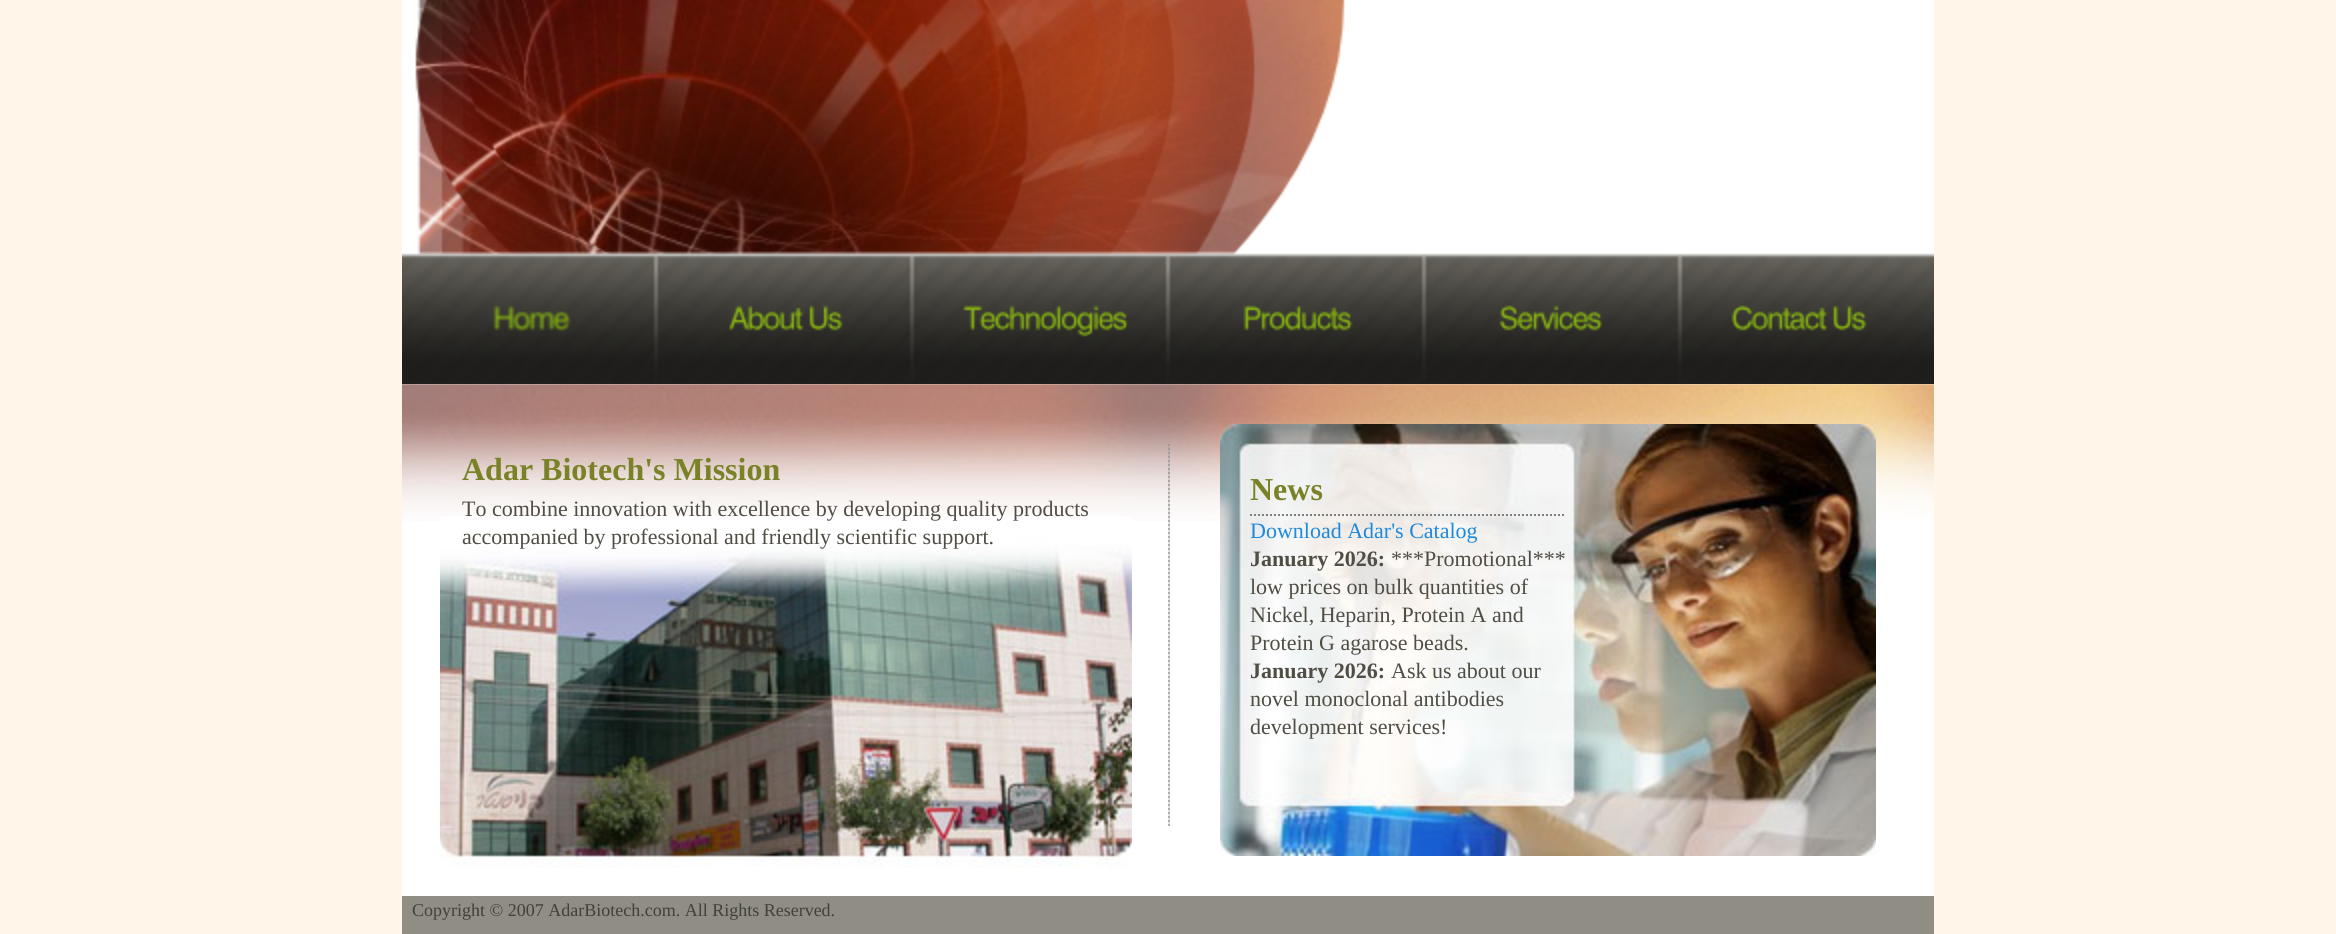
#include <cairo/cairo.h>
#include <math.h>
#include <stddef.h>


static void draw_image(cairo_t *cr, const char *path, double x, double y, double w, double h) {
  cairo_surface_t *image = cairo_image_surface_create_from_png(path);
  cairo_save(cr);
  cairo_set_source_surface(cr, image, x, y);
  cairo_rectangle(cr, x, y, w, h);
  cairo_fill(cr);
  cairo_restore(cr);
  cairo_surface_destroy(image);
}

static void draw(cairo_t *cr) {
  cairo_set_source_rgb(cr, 1, 246 / 255.0, 233 / 255.0);
  cairo_paint(cr);
  cairo_set_source_rgb(cr, 1, 1, 1);
  cairo_rectangle(cr, 402, 521, 1532, 375);
  cairo_fill(cr);
  draw_image(cr, "images/1.png", 402, 384, 1532, 137);
  draw_image(cr, "images/2.png", 402, 0, 1532, 384);
  draw_image(cr, "images/3.png", 440, 516, 692, 352);
  draw_image(cr, "images/4.png", 1168, 444, 2, 382);
  draw_image(cr, "images/5.png", 1220, 424, 656, 432);
  cairo_new_path(cr);
  cairo_move_to(cr, 1250, 515);
  cairo_line_to(cr, 1566, 515);
  cairo_set_source_rgb(cr, 128 / 255.0, 128 / 255.0, 128 / 255.0);
  cairo_set_dash(cr, (double[]){2, 2}, 2, 0);
  cairo_stroke(cr);
  cairo_set_source_rgb(cr, 143 / 255.0, 141 / 255.0, 132 / 255.0);
  cairo_rectangle(cr, 402, 896, 1532, 38);
  cairo_fill(cr);
  cairo_select_font_face(cr, "Liberation Serif", CAIRO_FONT_SLANT_NORMAL, CAIRO_FONT_WEIGHT_BOLD);
  cairo_set_font_size(cr, 32);
  cairo_set_source_rgb(cr, 122 / 255.0, 130 / 255.0, 39 / 255.0);
  cairo_move_to(cr, 462, 480);
  cairo_show_text(cr, "Adar Biotech's Mission");
  cairo_select_font_face(cr, "Liberation Serif", CAIRO_FONT_SLANT_NORMAL, CAIRO_FONT_WEIGHT_NORMAL);
  cairo_set_font_size(cr, 22);
  cairo_set_source_rgb(cr, 79 / 255.0, 77 / 255.0, 68 / 255.0);
  cairo_move_to(cr, 462, 516);
  cairo_show_text(cr, "To combine innovation with excellence by developing quality products");
  cairo_move_to(cr, 462, 544);
  cairo_show_text(cr, "accompanied by professional and friendly scientific support.");
  cairo_select_font_face(cr, "Liberation Serif", CAIRO_FONT_SLANT_NORMAL, CAIRO_FONT_WEIGHT_BOLD);
  cairo_set_font_size(cr, 32);
  cairo_set_source_rgb(cr, 122 / 255.0, 130 / 255.0, 39 / 255.0);
  cairo_move_to(cr, 1250, 500);
  cairo_show_text(cr, "News");
  cairo_select_font_face(cr, "Liberation Serif", CAIRO_FONT_SLANT_NORMAL, CAIRO_FONT_WEIGHT_NORMAL);
  cairo_set_font_size(cr, 22);
  cairo_set_source_rgb(cr, 27 / 255.0, 137 / 255.0, 222 / 255.0);
  cairo_move_to(cr, 1250, 538);
  cairo_show_text(cr, "Download Adar's Catalog");
  cairo_select_font_face(cr, "Liberation Serif", CAIRO_FONT_SLANT_NORMAL, CAIRO_FONT_WEIGHT_BOLD);
  cairo_set_source_rgb(cr, 79 / 255.0, 77 / 255.0, 68 / 255.0);
  cairo_move_to(cr, 1250, 566);
  cairo_show_text(cr, "January 2026:");
  cairo_select_font_face(cr, "Liberation Serif", CAIRO_FONT_SLANT_NORMAL, CAIRO_FONT_WEIGHT_NORMAL);
  cairo_move_to(cr, 1391, 566);
  cairo_show_text(cr, "***Promotional***");
  cairo_move_to(cr, 1250, 594);
  cairo_show_text(cr, "low prices on bulk quantities of");
  cairo_move_to(cr, 1250, 622);
  cairo_show_text(cr, "Nickel, Heparin, Protein A and");
  cairo_move_to(cr, 1250, 650);
  cairo_show_text(cr, "Protein G agarose beads.");
  cairo_select_font_face(cr, "Liberation Serif", CAIRO_FONT_SLANT_NORMAL, CAIRO_FONT_WEIGHT_BOLD);
  cairo_move_to(cr, 1250, 678);
  cairo_show_text(cr, "January 2026:");
  cairo_select_font_face(cr, "Liberation Serif", CAIRO_FONT_SLANT_NORMAL, CAIRO_FONT_WEIGHT_NORMAL);
  cairo_move_to(cr, 1391, 678);
  cairo_show_text(cr, "Ask us about our");
  cairo_move_to(cr, 1250, 706);
  cairo_show_text(cr, "novel monoclonal antibodies");
  cairo_move_to(cr, 1250, 734);
  cairo_show_text(cr, "development services!");
  cairo_set_font_size(cr, 18);
  cairo_set_source_rgb(cr, 66 / 255.0, 64 / 255.0, 60 / 255.0);
  cairo_move_to(cr, 412, 916);
  cairo_show_text(cr, "Copyright © 2007 AdarBiotech.com. All Rights Reserved.");
}

int main(void) {
  cairo_surface_t *surface = cairo_image_surface_create(CAIRO_FORMAT_RGB24, 2336, 934);
  cairo_t *cr = cairo_create(surface);
  cairo_font_options_t *options = cairo_font_options_create();
  cairo_font_options_set_hint_metrics(options, CAIRO_HINT_METRICS_OFF);
  cairo_font_options_set_hint_style(options, CAIRO_HINT_STYLE_NONE);
  cairo_set_font_options(cr, options);
  cairo_set_miter_limit(cr, 4);
  draw(cr);
  cairo_surface_write_to_png(surface, "out.png");
  cairo_font_options_destroy(options);
  cairo_destroy(cr);
  cairo_surface_destroy(surface);
  return 0;
}
